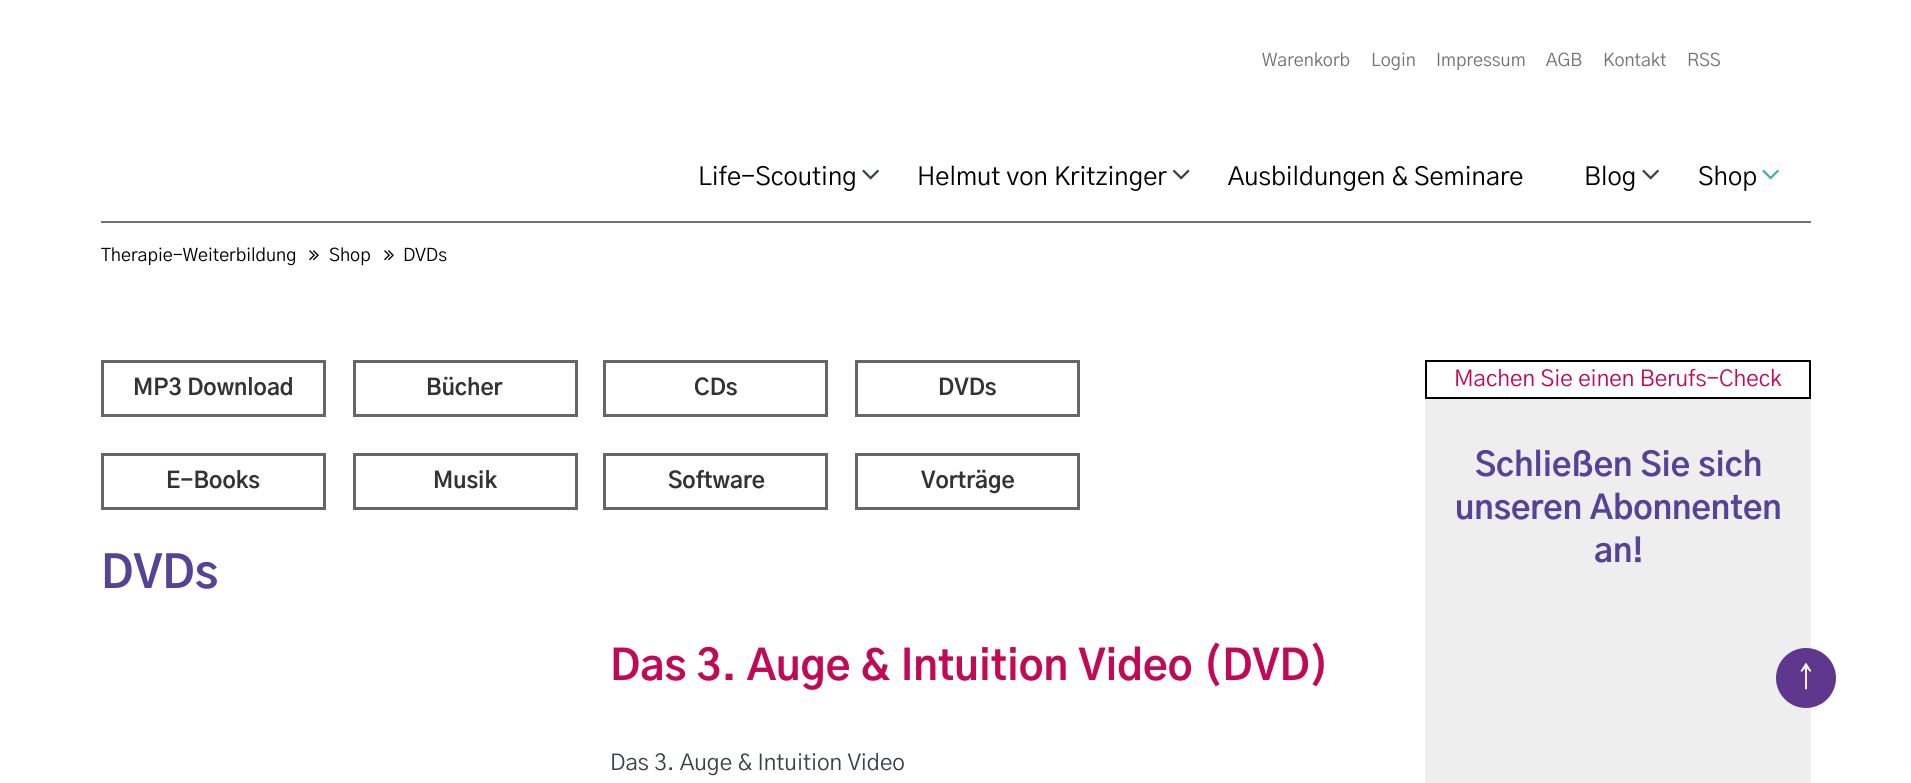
#include <cairo/cairo.h>
#include <math.h>
#include <stddef.h>


static void draw_image(cairo_t *cr, const char *path, double x, double y, double w, double h) {
  cairo_surface_t *image = cairo_image_surface_create_from_png(path);
  cairo_save(cr);
  cairo_set_source_surface(cr, image, x, y);
  cairo_rectangle(cr, x, y, w, h);
  cairo_fill(cr);
  cairo_restore(cr);
  cairo_surface_destroy(image);
}

static void draw(cairo_t *cr) {
  cairo_set_source_rgb(cr, 1, 1, 1);
  cairo_paint(cr);
  draw_image(cr, "images/1.png", 862, 169, 17, 11);
  draw_image(cr, "images/2.png", 1172, 169, 18, 11);
  draw_image(cr, "images/1.png", 1642, 169, 17, 11);
  draw_image(cr, "images/3.png", 1762, 169, 17, 11);
  cairo_set_source_rgb(cr, 114 / 255.0, 114 / 255.0, 114 / 255.0);
  cairo_rectangle(cr, 101, 221, 1710, 2);
  cairo_fill(cr);
  draw_image(cr, "images/4.png", 309, 250, 10, 11);
  draw_image(cr, "images/4.png", 384, 250, 10, 11);
  cairo_rectangle(cr, 102.5, 361.5, 222, 54);
  cairo_set_source_rgb(cr, 102 / 255.0, 102 / 255.0, 102 / 255.0);
  cairo_set_line_width(cr, 3);
  cairo_stroke(cr);
  cairo_rectangle(cr, 354.5, 361.5, 222, 54);
  cairo_stroke(cr);
  cairo_rectangle(cr, 604.5, 361.5, 222, 54);
  cairo_stroke(cr);
  cairo_rectangle(cr, 856.5, 361.5, 222, 54);
  cairo_stroke(cr);
  cairo_rectangle(cr, 102.5, 454.5, 222, 54);
  cairo_stroke(cr);
  cairo_rectangle(cr, 354.5, 454.5, 222, 54);
  cairo_stroke(cr);
  cairo_rectangle(cr, 604.5, 454.5, 222, 54);
  cairo_stroke(cr);
  cairo_rectangle(cr, 856.5, 454.5, 222, 54);
  cairo_stroke(cr);
  cairo_rectangle(cr, 1426, 361, 384, 37);
  cairo_set_source_rgb(cr, 0, 0, 0);
  cairo_set_line_width(cr, 2);
  cairo_stroke(cr);
  cairo_set_source_rgb(cr, 239 / 255.0, 238 / 255.0, 238 / 255.0);
  cairo_rectangle(cr, 1425, 399, 386, 384);
  cairo_fill(cr);
  cairo_set_source_rgb(cr, 95 / 255.0, 56 / 255.0, 141 / 255.0);
  cairo_arc(cr, 1806, 678, 30, 0, 2 * M_PI);
  cairo_fill(cr);
  cairo_select_font_face(cr, "Gothic A1", CAIRO_FONT_SLANT_NORMAL, CAIRO_FONT_WEIGHT_NORMAL);
  cairo_set_font_size(cr, 18);
  cairo_set_source_rgb(cr, 114 / 255.0, 114 / 255.0, 114 / 255.0);
  cairo_move_to(cr, 1262, 66);
  cairo_show_text(cr, "Warenkorb");
  cairo_move_to(cr, 1371, 66);
  cairo_show_text(cr, "Login");
  cairo_move_to(cr, 1436, 66);
  cairo_show_text(cr, "Impressum");
  cairo_move_to(cr, 1546, 66);
  cairo_show_text(cr, "AGB");
  cairo_move_to(cr, 1603, 66);
  cairo_show_text(cr, "Kontakt");
  cairo_move_to(cr, 1687, 66);
  cairo_show_text(cr, "RSS");
  cairo_set_font_size(cr, 25.5);
  cairo_set_source_rgb(cr, 0, 0, 0);
  cairo_move_to(cr, 698, 185);
  cairo_show_text(cr, "Life-Scouting");
  cairo_move_to(cr, 917, 185);
  cairo_show_text(cr, "Helmut von Kritzinger");
  cairo_move_to(cr, 1228, 185);
  cairo_show_text(cr, "Ausbildungen & Seminare");
  cairo_move_to(cr, 1584, 185);
  cairo_show_text(cr, "Blog");
  cairo_move_to(cr, 1698, 185);
  cairo_show_text(cr, "Shop");
  cairo_set_font_size(cr, 18);
  cairo_move_to(cr, 101, 261);
  cairo_show_text(cr, "Therapie-Weiterbildung");
  cairo_move_to(cr, 329, 261);
  cairo_show_text(cr, "Shop");
  cairo_move_to(cr, 403, 261);
  cairo_show_text(cr, "DVDs");
  cairo_select_font_face(cr, "Gothic A1", CAIRO_FONT_SLANT_NORMAL, CAIRO_FONT_WEIGHT_BOLD);
  cairo_set_font_size(cr, 22.5);
  cairo_set_source_rgb(cr, 51 / 255.0, 51 / 255.0, 51 / 255.0);
  cairo_move_to(cr, 133, 395);
  cairo_show_text(cr, "MP3 Download");
  cairo_move_to(cr, 426, 395);
  cairo_show_text(cr, "Bücher");
  cairo_move_to(cr, 694, 395);
  cairo_show_text(cr, "CDs");
  cairo_move_to(cr, 938, 395);
  cairo_show_text(cr, "DVDs");
  cairo_move_to(cr, 166, 488);
  cairo_show_text(cr, "E-Books");
  cairo_move_to(cr, 433, 488);
  cairo_show_text(cr, "Musik");
  cairo_move_to(cr, 668, 488);
  cairo_show_text(cr, "Software");
  cairo_move_to(cr, 921, 488);
  cairo_show_text(cr, "Vorträge");
  cairo_set_font_size(cr, 45);
  cairo_set_source_rgb(cr, 85 / 255.0, 68 / 255.0, 150 / 255.0);
  cairo_move_to(cr, 101, 588);
  cairo_show_text(cr, "DVDs");
  cairo_set_font_size(cr, 42);
  cairo_set_source_rgb(cr, 194 / 255.0, 9 / 255.0, 85 / 255.0);
  cairo_move_to(cr, 610, 680);
  cairo_show_text(cr, "Das 3. Auge & Intuition Video (DVD)");
  cairo_select_font_face(cr, "Gothic A1", CAIRO_FONT_SLANT_NORMAL, CAIRO_FONT_WEIGHT_NORMAL);
  cairo_set_font_size(cr, 22.5);
  cairo_set_source_rgb(cr, 59 / 255.0, 64 / 255.0, 75 / 255.0);
  cairo_move_to(cr, 610, 770);
  cairo_show_text(cr, "Das 3. Auge & Intuition Video");
  cairo_set_source_rgb(cr, 194 / 255.0, 9 / 255.0, 85 / 255.0);
  cairo_move_to(cr, 1454, 386);
  cairo_show_text(cr, "Machen Sie einen Berufs-Check");
  cairo_select_font_face(cr, "Gothic A1", CAIRO_FONT_SLANT_NORMAL, CAIRO_FONT_WEIGHT_BOLD);
  cairo_set_font_size(cr, 33);
  cairo_set_source_rgb(cr, 85 / 255.0, 68 / 255.0, 150 / 255.0);
  cairo_move_to(cr, 1475, 476);
  cairo_show_text(cr, "Schließen Sie sich");
  cairo_move_to(cr, 1455, 519);
  cairo_show_text(cr, "unseren Abonnenten");
  cairo_move_to(cr, 1594, 562);
  cairo_show_text(cr, "an!");
  cairo_select_font_face(cr, "Gothic A1", CAIRO_FONT_SLANT_NORMAL, CAIRO_FONT_WEIGHT_NORMAL);
  cairo_set_font_size(cr, 30);
  cairo_set_source_rgb(cr, 1, 1, 1);
  cairo_move_to(cr, 1797, 687);
  cairo_show_text(cr, "↑");
}

int main(void) {
  cairo_surface_t *surface = cairo_image_surface_create(CAIRO_FORMAT_RGB24, 1911, 783);
  cairo_t *cr = cairo_create(surface);
  cairo_font_options_t *options = cairo_font_options_create();
  cairo_font_options_set_hint_metrics(options, CAIRO_HINT_METRICS_OFF);
  cairo_font_options_set_hint_style(options, CAIRO_HINT_STYLE_NONE);
  cairo_set_font_options(cr, options);
  cairo_set_miter_limit(cr, 4);
  draw(cr);
  cairo_surface_write_to_png(surface, "out.png");
  cairo_font_options_destroy(options);
  cairo_destroy(cr);
  cairo_surface_destroy(surface);
  return 0;
}
